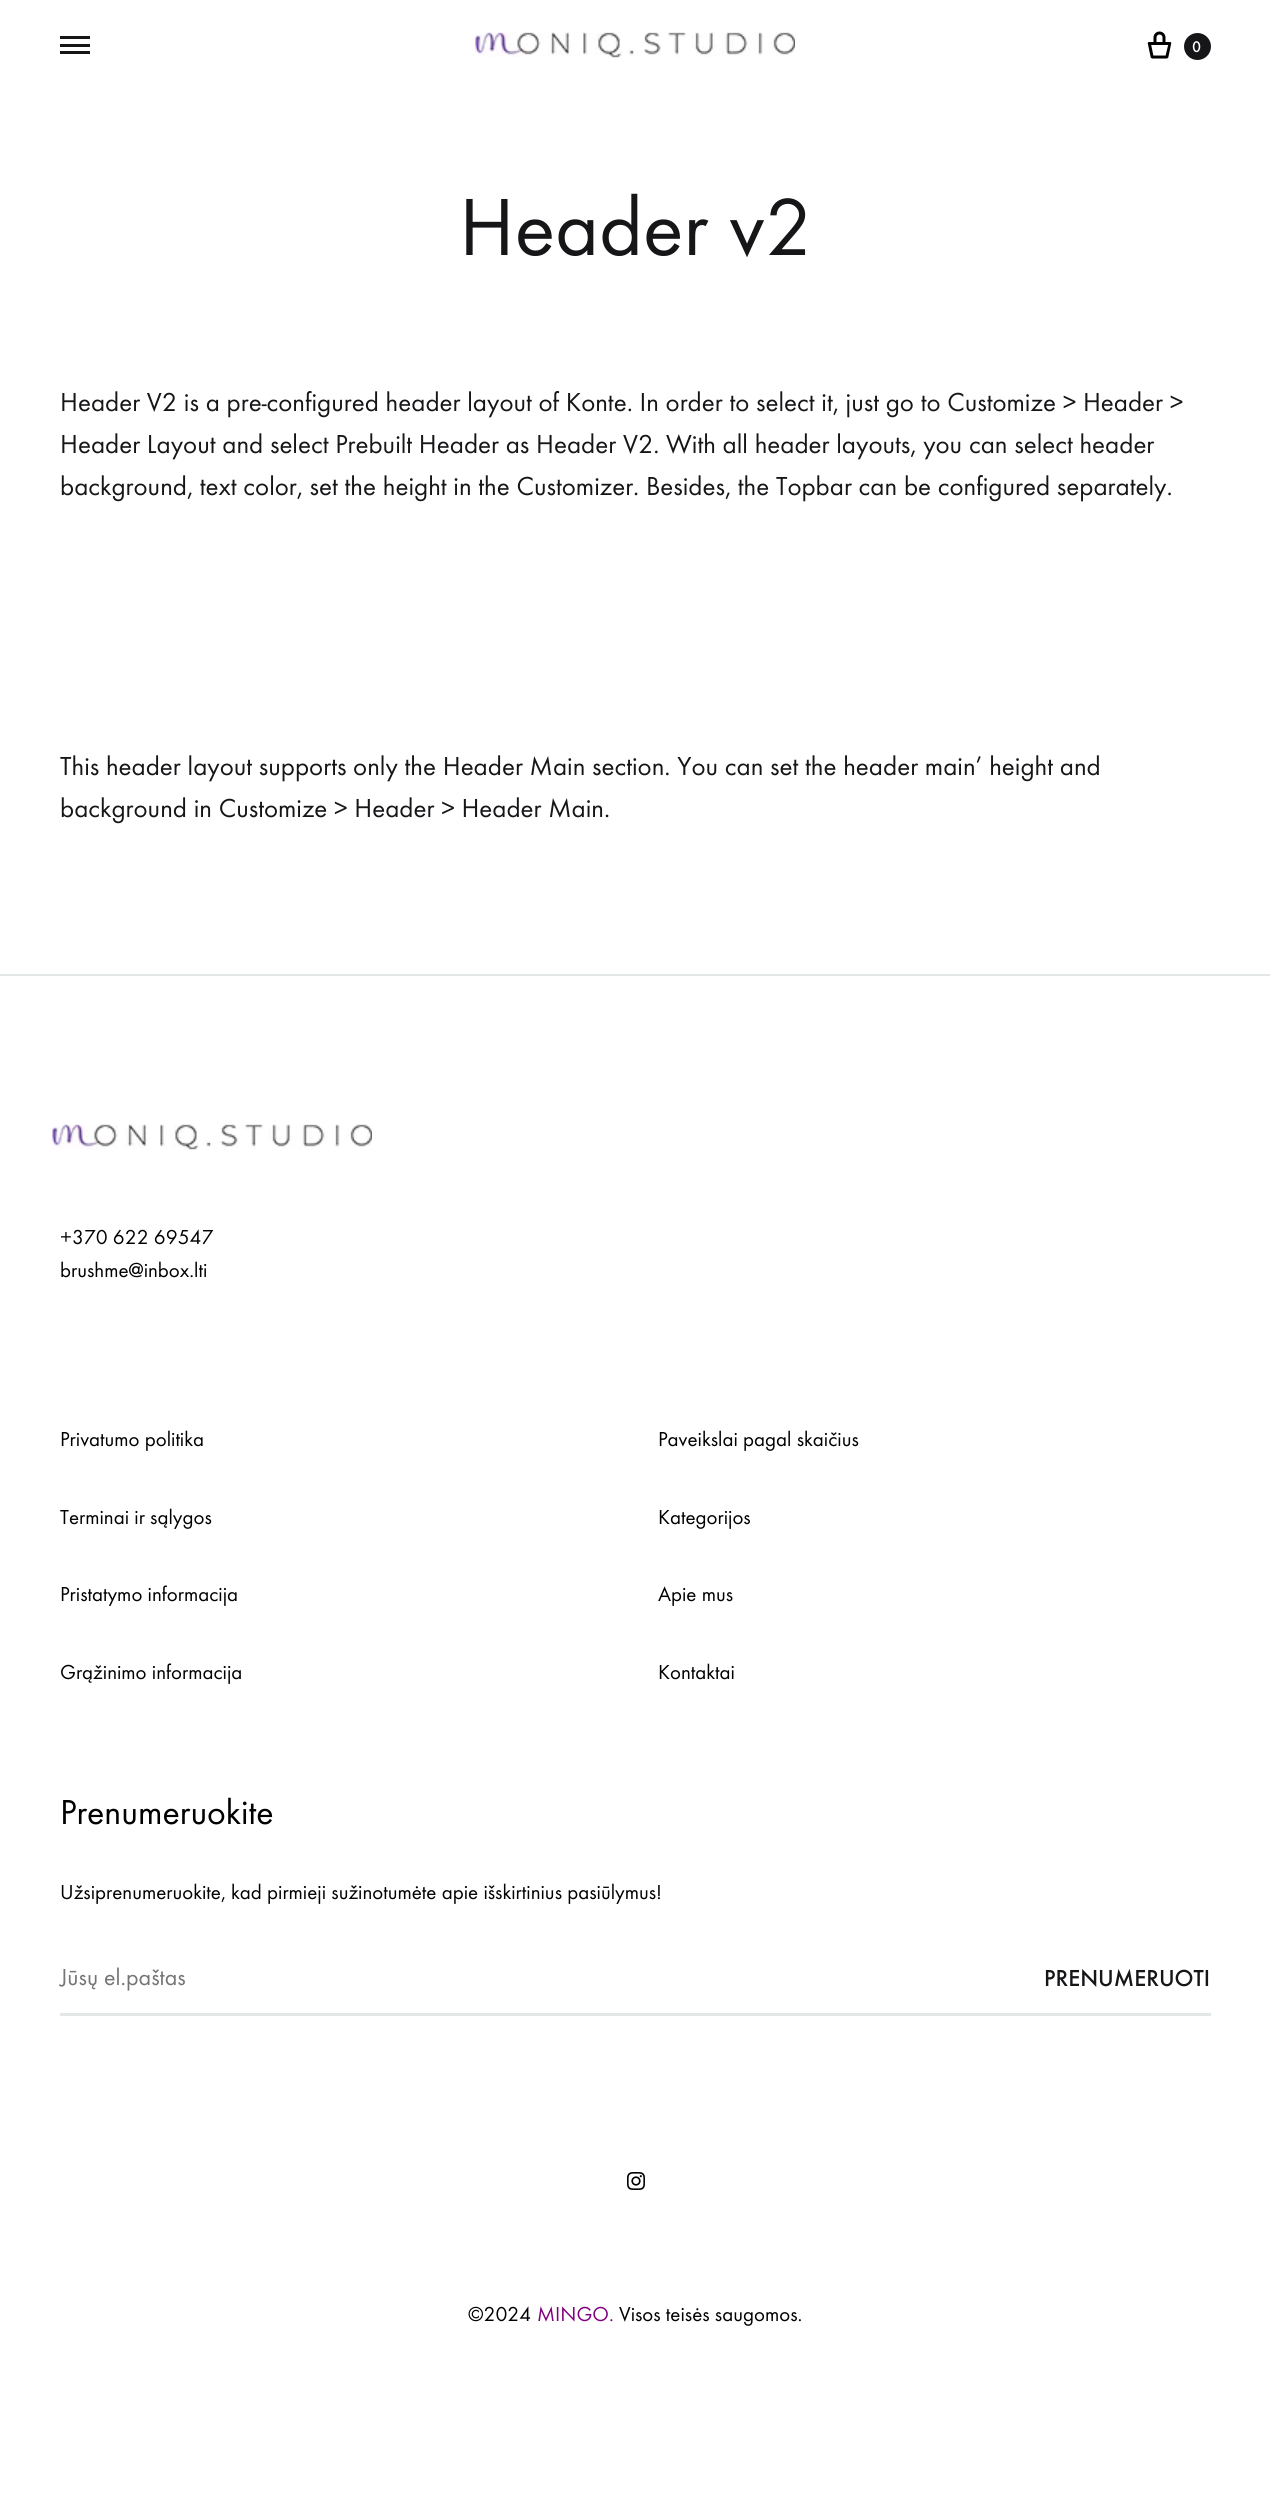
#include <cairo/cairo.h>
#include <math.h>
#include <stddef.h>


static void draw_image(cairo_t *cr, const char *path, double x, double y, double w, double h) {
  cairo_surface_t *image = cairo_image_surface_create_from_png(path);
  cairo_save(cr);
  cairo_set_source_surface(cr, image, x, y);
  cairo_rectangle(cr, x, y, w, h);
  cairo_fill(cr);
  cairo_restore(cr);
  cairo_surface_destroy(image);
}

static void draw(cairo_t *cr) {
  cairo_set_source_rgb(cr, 1, 1, 1);
  cairo_paint(cr);
  cairo_set_source_rgb(cr, 22 / 255.0, 22 / 255.0, 25 / 255.0);
  cairo_rectangle(cr, 60, 44, 30, 3);
  cairo_fill(cr);
  cairo_rectangle(cr, 60, 36, 30, 3);
  cairo_fill(cr);
  cairo_rectangle(cr, 60, 51, 30, 3);
  cairo_fill(cr);
  draw_image(cr, "images/1.png", 475, 32, 320, 26);
  draw_image(cr, "images/2.png", 1147, 31, 25, 28);
  cairo_arc(cr, 1197.5, 46.5, 13.5, 0, 2 * M_PI);
  cairo_fill(cr);
  cairo_set_source_rgb(cr, 227 / 255.0, 231 / 255.0, 232 / 255.0);
  cairo_rectangle(cr, 0, 974, 1270, 2);
  cairo_fill(cr);
  draw_image(cr, "images/1.png", 52, 1124, 320, 26);
  cairo_rectangle(cr, 60, 2013, 1151, 3);
  cairo_fill(cr);
  draw_image(cr, "images/3.png", 627, 2172, 18, 18);
  cairo_select_font_face(cr, "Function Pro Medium", CAIRO_FONT_SLANT_NORMAL, CAIRO_FONT_WEIGHT_NORMAL);
  cairo_set_font_size(cr, 16);
  cairo_set_source_rgb(cr, 1, 1, 1);
  cairo_move_to(cr, 1192, 52);
  cairo_show_text(cr, "0");
  cairo_select_font_face(cr, "Function Pro", CAIRO_FONT_SLANT_NORMAL, CAIRO_FONT_WEIGHT_NORMAL);
  cairo_set_font_size(cr, 84);
  cairo_set_source_rgb(cr, 22 / 255.0, 22 / 255.0, 25 / 255.0);
  cairo_move_to(cr, 459, 255);
  cairo_show_text(cr, "Header v2");
  cairo_set_font_size(cr, 27);
  cairo_move_to(cr, 60, 411);
  cairo_show_text(cr, "Header V2 is a pre-configured header layout of Konte. In order to select it, just go to Customize > Header >");
  cairo_move_to(cr, 60, 453);
  cairo_show_text(cr, "Header Layout and select Prebuilt Header as Header V2. With all header layouts, you can select header");
  cairo_move_to(cr, 60, 495);
  cairo_show_text(cr, "background, text color, set the height in the Customizer. Besides, the Topbar can be configured separately.");
  cairo_move_to(cr, 60, 775);
  cairo_show_text(cr, "This header layout supports only the Header Main section. You can set the header main’ height and");
  cairo_move_to(cr, 60, 817);
  cairo_show_text(cr, "background in Customize > Header > Header Main.");
  cairo_set_font_size(cr, 21);
  cairo_set_source_rgb(cr, 0, 0, 0);
  cairo_move_to(cr, 60, 1244);
  cairo_show_text(cr, "+370 622 69547");
  cairo_move_to(cr, 60, 1277);
  cairo_show_text(cr, "brushme@inbox.lti");
  cairo_move_to(cr, 60, 1446);
  cairo_show_text(cr, "Privatumo politika");
  cairo_move_to(cr, 60, 1524);
  cairo_show_text(cr, "Terminai ir sąlygos");
  cairo_move_to(cr, 60, 1601);
  cairo_show_text(cr, "Pristatymo informacija");
  cairo_move_to(cr, 60, 1679);
  cairo_show_text(cr, "Grąžinimo informacija");
  cairo_move_to(cr, 658, 1446);
  cairo_show_text(cr, "Paveikslai pagal skaičius");
  cairo_move_to(cr, 658, 1524);
  cairo_show_text(cr, "Kategorijos");
  cairo_move_to(cr, 658, 1601);
  cairo_show_text(cr, "Apie mus");
  cairo_move_to(cr, 658, 1679);
  cairo_show_text(cr, "Kontaktai");
  cairo_set_font_size(cr, 36);
  cairo_move_to(cr, 60, 1824);
  cairo_show_text(cr, "Prenumeruokite");
  cairo_set_font_size(cr, 21);
  cairo_move_to(cr, 60, 1899);
  cairo_show_text(cr, "Užsiprenumeruokite, kad pirmieji sužinotumėte apie išskirtinius pasiūlymus!");
  cairo_set_font_size(cr, 24);
  cairo_set_source_rgb(cr, 117 / 255.0, 117 / 255.0, 117 / 255.0);
  cairo_move_to(cr, 60, 1985);
  cairo_show_text(cr, "Jūsų el.paštas");
  cairo_select_font_face(cr, "Function Pro Medium", CAIRO_FONT_SLANT_NORMAL, CAIRO_FONT_WEIGHT_NORMAL);
  cairo_set_source_rgb(cr, 22 / 255.0, 22 / 255.0, 25 / 255.0);
  cairo_move_to(cr, 1044, 1986);
  cairo_show_text(cr, "PRENUMERUOTI");
  cairo_select_font_face(cr, "Function Pro", CAIRO_FONT_SLANT_NORMAL, CAIRO_FONT_WEIGHT_NORMAL);
  cairo_set_font_size(cr, 21);
  cairo_set_source_rgb(cr, 0, 0, 0);
  cairo_move_to(cr, 468, 2321);
  cairo_show_text(cr, "©2024");
  cairo_set_source_rgb(cr, 128 / 255.0, 0, 128 / 255.0);
  cairo_move_to(cr, 537, 2321);
  cairo_show_text(cr, "MINGO.");
  cairo_set_source_rgb(cr, 0, 0, 0);
  cairo_move_to(cr, 619, 2321);
  cairo_show_text(cr, "Visos teisės saugomos.");
}

int main(void) {
  cairo_surface_t *surface = cairo_image_surface_create(CAIRO_FORMAT_RGB24, 1270, 2511);
  cairo_t *cr = cairo_create(surface);
  cairo_font_options_t *options = cairo_font_options_create();
  cairo_font_options_set_hint_metrics(options, CAIRO_HINT_METRICS_OFF);
  cairo_font_options_set_hint_style(options, CAIRO_HINT_STYLE_NONE);
  cairo_set_font_options(cr, options);
  cairo_set_miter_limit(cr, 4);
  draw(cr);
  cairo_surface_write_to_png(surface, "out.png");
  cairo_font_options_destroy(options);
  cairo_destroy(cr);
  cairo_surface_destroy(surface);
  return 0;
}
